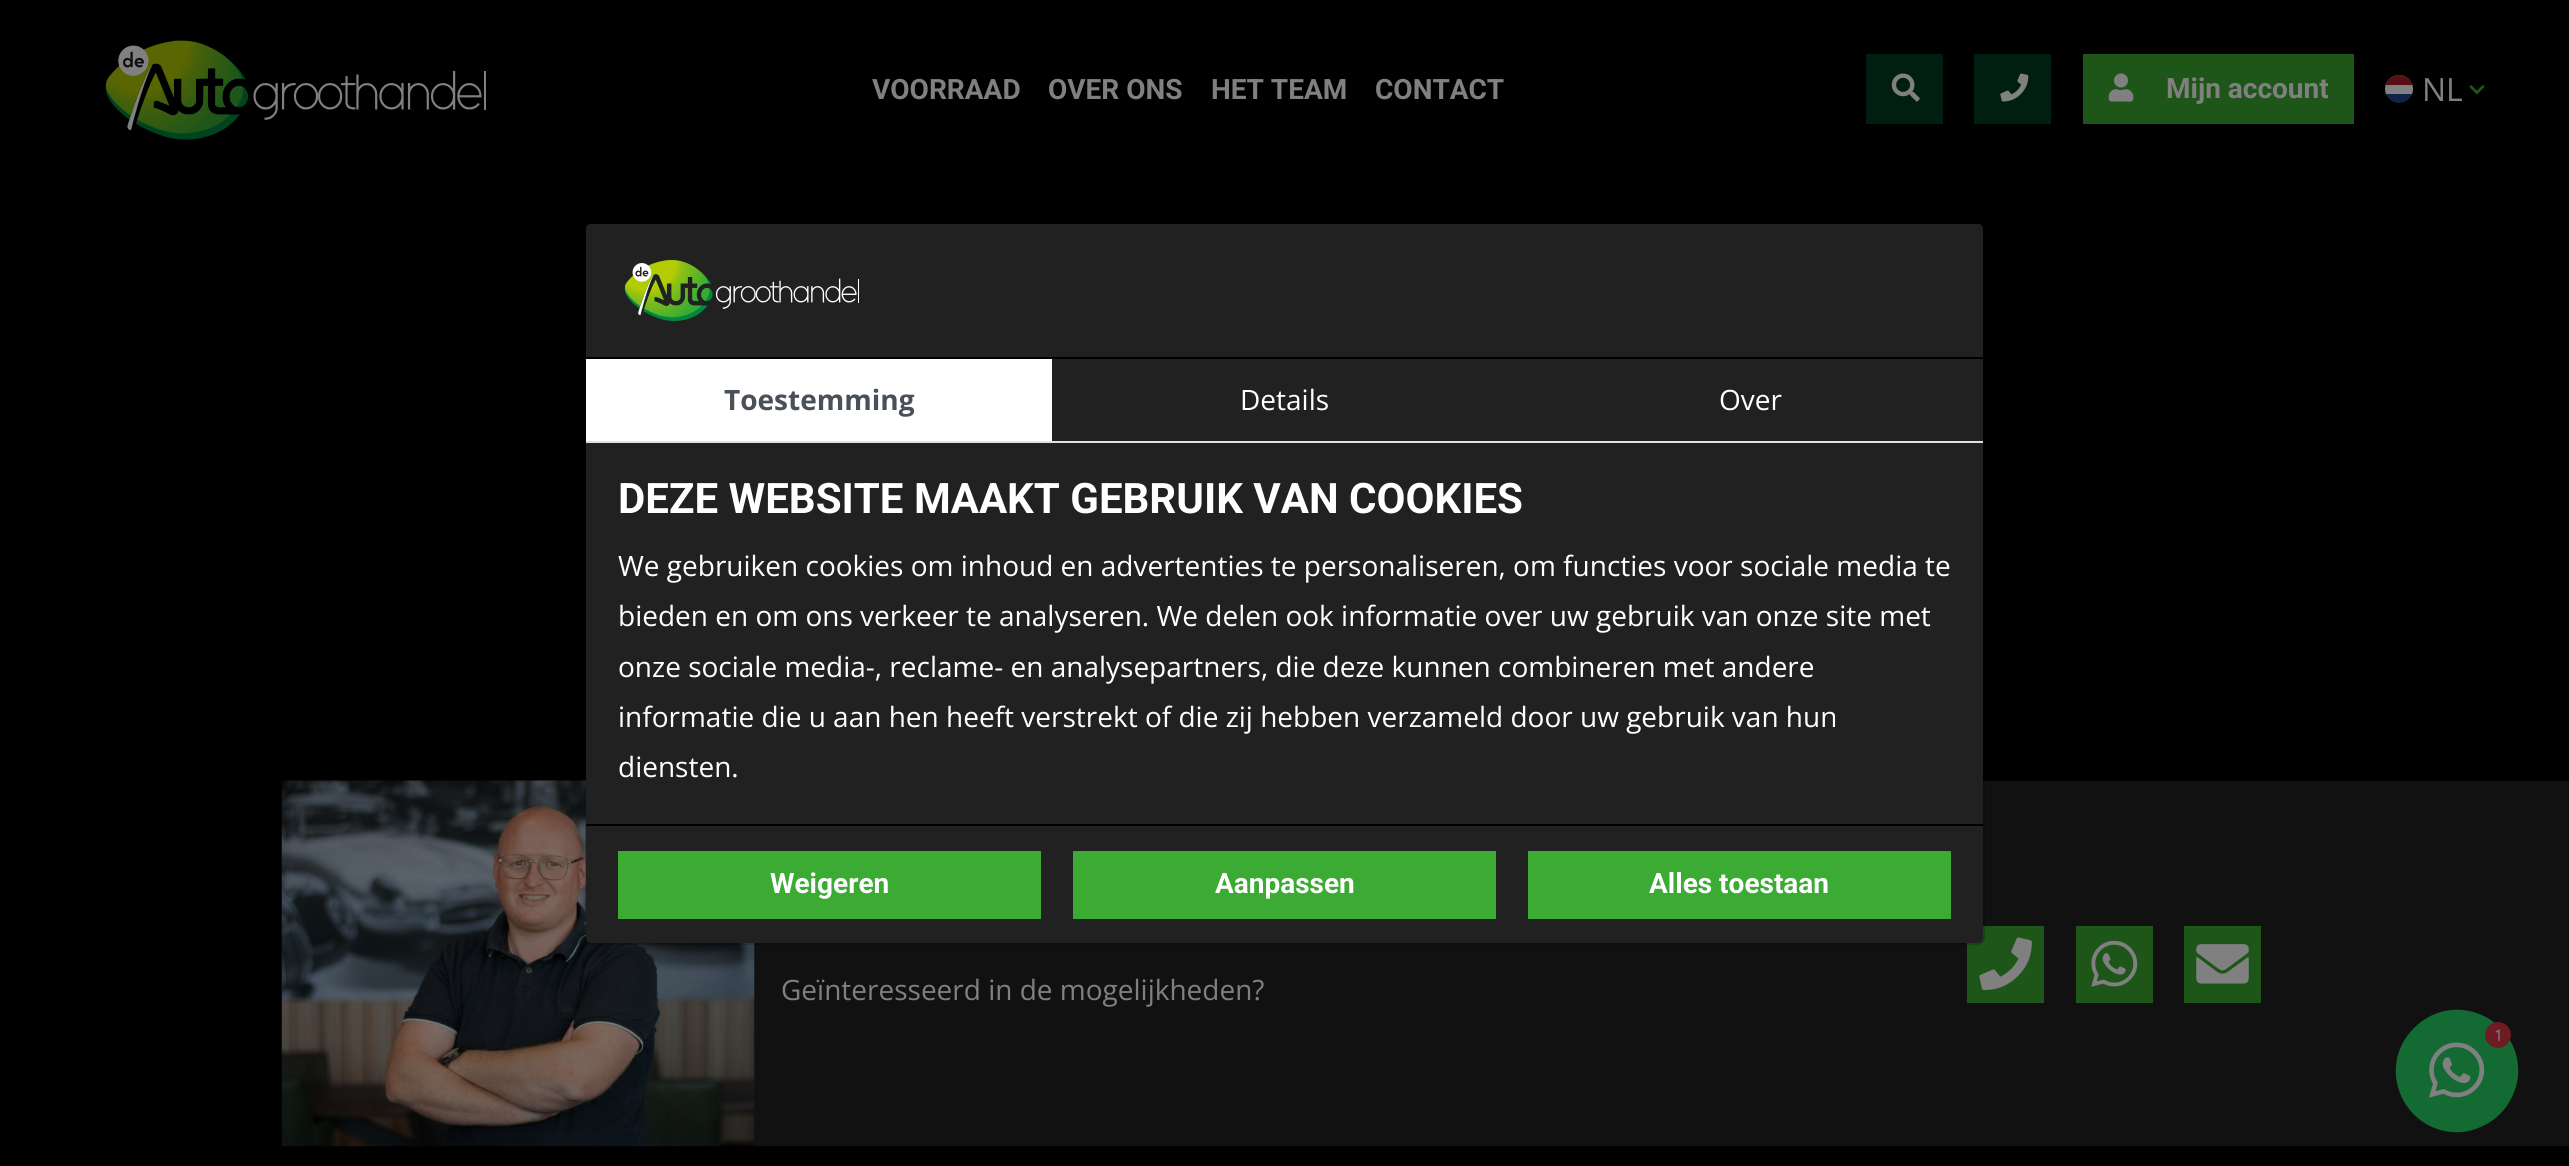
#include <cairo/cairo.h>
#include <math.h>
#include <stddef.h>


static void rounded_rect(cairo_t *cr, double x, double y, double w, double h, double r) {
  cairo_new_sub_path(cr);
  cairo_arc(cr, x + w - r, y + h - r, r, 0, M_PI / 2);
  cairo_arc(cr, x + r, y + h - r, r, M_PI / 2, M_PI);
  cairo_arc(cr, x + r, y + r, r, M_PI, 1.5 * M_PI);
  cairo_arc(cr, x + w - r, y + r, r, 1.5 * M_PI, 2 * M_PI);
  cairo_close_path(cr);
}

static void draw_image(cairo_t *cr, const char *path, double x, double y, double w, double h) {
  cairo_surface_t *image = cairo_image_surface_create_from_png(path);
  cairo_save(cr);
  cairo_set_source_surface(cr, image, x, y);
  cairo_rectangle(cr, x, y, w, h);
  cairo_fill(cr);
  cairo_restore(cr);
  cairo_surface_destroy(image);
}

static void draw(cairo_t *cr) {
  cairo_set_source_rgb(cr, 0, 0, 0);
  cairo_paint(cr);
  draw_image(cr, "images/1.png", 105, 40, 381, 100);
  cairo_set_source_rgb(cr, 0, 31 / 255.0, 16 / 255.0);
  cairo_rectangle(cr, 1866, 54, 77, 70);
  cairo_fill(cr);
  draw_image(cr, "images/2.png", 1891, 73, 29, 29);
  cairo_rectangle(cr, 1974, 54, 77, 70);
  cairo_fill(cr);
  draw_image(cr, "images/3.png", 2000, 73, 29, 29);
  cairo_set_source_rgb(cr, 30 / 255.0, 86 / 255.0, 26 / 255.0);
  cairo_rectangle(cr, 2083, 54, 271, 70);
  cairo_fill(cr);
  draw_image(cr, "images/4.png", 2108, 73, 26, 29);
  cairo_set_source_rgb(cr, 17 / 255.0, 35 / 255.0, 70 / 255.0);
  cairo_arc(cr, 2399, 89, 14, 0, 2 * M_PI);
  cairo_fill(cr);
  cairo_save(cr);
  rounded_rect(cr, 2385, 75, 28, 28, 14);
  cairo_clip(cr);
  cairo_set_source_rgb(cr, 128 / 255.0, 128 / 255.0, 128 / 255.0);
  cairo_new_path(cr);
  cairo_move_to(cr, 2399, 75);
  cairo_curve_to(cr, 2406.5, 75, 2413, 81.5, 2413, 89);
  cairo_line_to(cr, 2413, 94);
  cairo_line_to(cr, 2385, 94);
  cairo_line_to(cr, 2385, 89);
  cairo_curve_to(cr, 2385, 81.5, 2391.5, 75, 2399, 75);
  cairo_close_path(cr);
  cairo_fill(cr);
  cairo_set_source_rgb(cr, 87 / 255.0, 14 / 255.0, 20 / 255.0);
  cairo_rectangle(cr, 2385, 75, 28, 10);
  cairo_fill(cr);
  cairo_restore(cr);
  draw_image(cr, "images/5.png", 2469, 85, 16, 10);
  cairo_set_source_rgb(cr, 17 / 255.0, 17 / 255.0, 17 / 255.0);
  cairo_rectangle(cr, 754, 781, 1815, 365);
  cairo_fill(cr);
  draw_image(cr, "images/7.png", 281, 780, 474, 367);
  cairo_set_source_rgb(cr, 30 / 255.0, 86 / 255.0, 26 / 255.0);
  cairo_rectangle(cr, 1967, 926, 77, 77);
  cairo_fill(cr);
  draw_image(cr, "images/8.png", 1979, 937, 53, 54);
  rounded_rect(cr, 586, 223, 1398, 721, 6);
  cairo_set_source_rgba(cr, 0, 0, 0, 0.2);
  cairo_stroke(cr);
  cairo_set_source_rgb(cr, 33 / 255.0, 33 / 255.0, 33 / 255.0);
  cairo_new_path(cr);
  cairo_move_to(cr, 591, 224);
  cairo_line_to(cr, 1978, 224);
  cairo_curve_to(cr, 1981, 224, 1983, 226, 1983, 229);
  cairo_line_to(cr, 1983, 359);
  cairo_line_to(cr, 586, 359);
  cairo_line_to(cr, 586, 229);
  cairo_curve_to(cr, 586, 226, 588, 224, 591, 224);
  cairo_close_path(cr);
  cairo_fill(cr);
  cairo_set_source_rgb(cr, 0, 0, 0);
  cairo_rectangle(cr, 586, 357, 1397, 2);
  cairo_fill(cr);
  draw_image(cr, "images/6.png", 624, 260, 235, 61);
  cairo_set_source_rgb(cr, 33 / 255.0, 33 / 255.0, 33 / 255.0);
  cairo_rectangle(cr, 586, 359, 1397, 465);
  cairo_fill(cr);
  cairo_set_source_rgb(cr, 222 / 255.0, 226 / 255.0, 230 / 255.0);
  cairo_rectangle(cr, 586, 441, 1397, 2);
  cairo_fill(cr);
  cairo_set_source_rgb(cr, 1, 1, 1);
  cairo_rectangle(cr, 586, 359, 466, 82);
  cairo_fill(cr);
  cairo_set_source_rgb(cr, 33 / 255.0, 33 / 255.0, 33 / 255.0);
  cairo_new_path(cr);
  cairo_move_to(cr, 586, 824);
  cairo_line_to(cr, 1983, 824);
  cairo_line_to(cr, 1983, 938);
  cairo_curve_to(cr, 1983, 941, 1981, 943, 1978, 943);
  cairo_line_to(cr, 591, 943);
  cairo_curve_to(cr, 588, 943, 586, 941, 586, 938);
  cairo_close_path(cr);
  cairo_fill(cr);
  cairo_set_source_rgb(cr, 0, 0, 0);
  cairo_rectangle(cr, 586, 824, 1397, 2);
  cairo_fill(cr);
  cairo_set_source_rgb(cr, 60 / 255.0, 171 / 255.0, 52 / 255.0);
  cairo_rectangle(cr, 618, 851, 423, 68);
  cairo_fill(cr);
  cairo_rectangle(cr, 1073, 851, 423, 68);
  cairo_fill(cr);
  cairo_rectangle(cr, 1528, 851, 423, 68);
  cairo_fill(cr);
  cairo_set_source_rgb(cr, 30 / 255.0, 86 / 255.0, 26 / 255.0);
  cairo_rectangle(cr, 2076, 926, 77, 77);
  cairo_fill(cr);
  draw_image(cr, "images/9.png", 2091, 940, 47, 47);
  cairo_rectangle(cr, 2184, 926, 77, 77);
  cairo_fill(cr);
  draw_image(cr, "images/10.png", 2196, 944, 53, 40);
  cairo_set_source_rgb(cr, 19 / 255.0, 106 / 255.0, 51 / 255.0);
  cairo_new_path(cr);
  cairo_move_to(cr, 2414, 1028);
  cairo_curve_to(cr, 2455, 987, 2523, 1020, 2518, 1077);
  cairo_curve_to(cr, 2516, 1091, 2510, 1104, 2500, 1114);
  cairo_curve_to(cr, 2490, 1124, 2477, 1130, 2463, 1132);
  cairo_curve_to(cr, 2406, 1137, 2373, 1069, 2414, 1028);
  cairo_close_path(cr);
  cairo_fill(cr);
  draw_image(cr, "images/11.png", 2429, 1042, 56, 56);
  cairo_set_source_rgb(cr, 110 / 255.0, 27 / 255.0, 35 / 255.0);
  cairo_arc(cr, 2498, 1035, 13, 0, 2 * M_PI);
  cairo_fill(cr);
  cairo_select_font_face(cr, "Roboto", CAIRO_FONT_SLANT_NORMAL, CAIRO_FONT_WEIGHT_BOLD);
  cairo_set_font_size(cr, 28);
  cairo_set_source_rgb(cr, 128 / 255.0, 128 / 255.0, 128 / 255.0);
  cairo_move_to(cr, 872, 99);
  cairo_show_text(cr, "VOORRAAD");
  cairo_move_to(cr, 1048, 99);
  cairo_show_text(cr, "OVER ONS");
  cairo_move_to(cr, 1211, 99);
  cairo_show_text(cr, "HET TEAM");
  cairo_move_to(cr, 1375, 99);
  cairo_show_text(cr, "CONTACT");
  cairo_move_to(cr, 2166, 98);
  cairo_show_text(cr, "Mijn account");
  cairo_select_font_face(cr, "Open Sans", CAIRO_FONT_SLANT_NORMAL, CAIRO_FONT_WEIGHT_NORMAL);
  cairo_set_font_size(cr, 32);
  cairo_move_to(cr, 2422, 101);
  cairo_show_text(cr, "NL");
  cairo_select_font_face(cr, "Open Sans", CAIRO_FONT_SLANT_NORMAL, CAIRO_FONT_WEIGHT_BOLD);
  cairo_set_font_size(cr, 28);
  cairo_set_source_rgb(cr, 73 / 255.0, 80 / 255.0, 87 / 255.0);
  cairo_move_to(cr, 724, 410);
  cairo_show_text(cr, "Toestemming");
  cairo_select_font_face(cr, "Open Sans", CAIRO_FONT_SLANT_NORMAL, CAIRO_FONT_WEIGHT_NORMAL);
  cairo_set_source_rgb(cr, 1, 1, 1);
  cairo_move_to(cr, 1240, 410);
  cairo_show_text(cr, "Details");
  cairo_move_to(cr, 1719, 410);
  cairo_show_text(cr, "Over");
  cairo_select_font_face(cr, "Roboto", CAIRO_FONT_SLANT_NORMAL, CAIRO_FONT_WEIGHT_BOLD);
  cairo_set_font_size(cr, 42);
  cairo_move_to(cr, 618, 513);
  cairo_show_text(cr, "DEZE WEBSITE MAAKT GEBRUIK VAN COOKIES");
  cairo_select_font_face(cr, "Open Sans", CAIRO_FONT_SLANT_NORMAL, CAIRO_FONT_WEIGHT_NORMAL);
  cairo_set_font_size(cr, 28);
  cairo_move_to(cr, 618, 576);
  cairo_show_text(cr, "We gebruiken cookies om inhoud en advertenties te personaliseren, om functies voor sociale media te");
  cairo_move_to(cr, 618, 626);
  cairo_show_text(cr, "bieden en om ons verkeer te analyseren. We delen ook informatie over uw gebruik van onze site met");
  cairo_move_to(cr, 618, 677);
  cairo_show_text(cr, "onze sociale media-, reclame- en analysepartners, die deze kunnen combineren met andere");
  cairo_move_to(cr, 618, 727);
  cairo_show_text(cr, "informatie die u aan hen heeft verstrekt of die zij hebben verzameld door uw gebruik van hun");
  cairo_move_to(cr, 618, 777);
  cairo_show_text(cr, "diensten.");
  cairo_select_font_face(cr, "Roboto", CAIRO_FONT_SLANT_NORMAL, CAIRO_FONT_WEIGHT_BOLD);
  cairo_move_to(cr, 770, 893);
  cairo_show_text(cr, "Weigeren");
  cairo_move_to(cr, 1215, 893);
  cairo_show_text(cr, "Aanpassen");
  cairo_move_to(cr, 1649, 893);
  cairo_show_text(cr, "Alles toestaan");
  cairo_select_font_face(cr, "Open Sans", CAIRO_FONT_SLANT_NORMAL, CAIRO_FONT_WEIGHT_NORMAL);
  cairo_set_source_rgb(cr, 128 / 255.0, 128 / 255.0, 128 / 255.0);
  cairo_move_to(cr, 781, 1000);
  cairo_show_text(cr, "Geïnteresseerd in de mogelijkheden?");
  cairo_set_font_size(cr, 16);
  cairo_move_to(cr, 2494, 1041);
  cairo_show_text(cr, "1");
}

int main(void) {
  cairo_surface_t *surface = cairo_image_surface_create(CAIRO_FORMAT_RGB24, 2569, 1166);
  cairo_t *cr = cairo_create(surface);
  cairo_font_options_t *options = cairo_font_options_create();
  cairo_font_options_set_hint_metrics(options, CAIRO_HINT_METRICS_OFF);
  cairo_font_options_set_hint_style(options, CAIRO_HINT_STYLE_NONE);
  cairo_set_font_options(cr, options);
  cairo_set_miter_limit(cr, 4);
  draw(cr);
  cairo_surface_write_to_png(surface, "out.png");
  cairo_font_options_destroy(options);
  cairo_destroy(cr);
  cairo_surface_destroy(surface);
  return 0;
}
